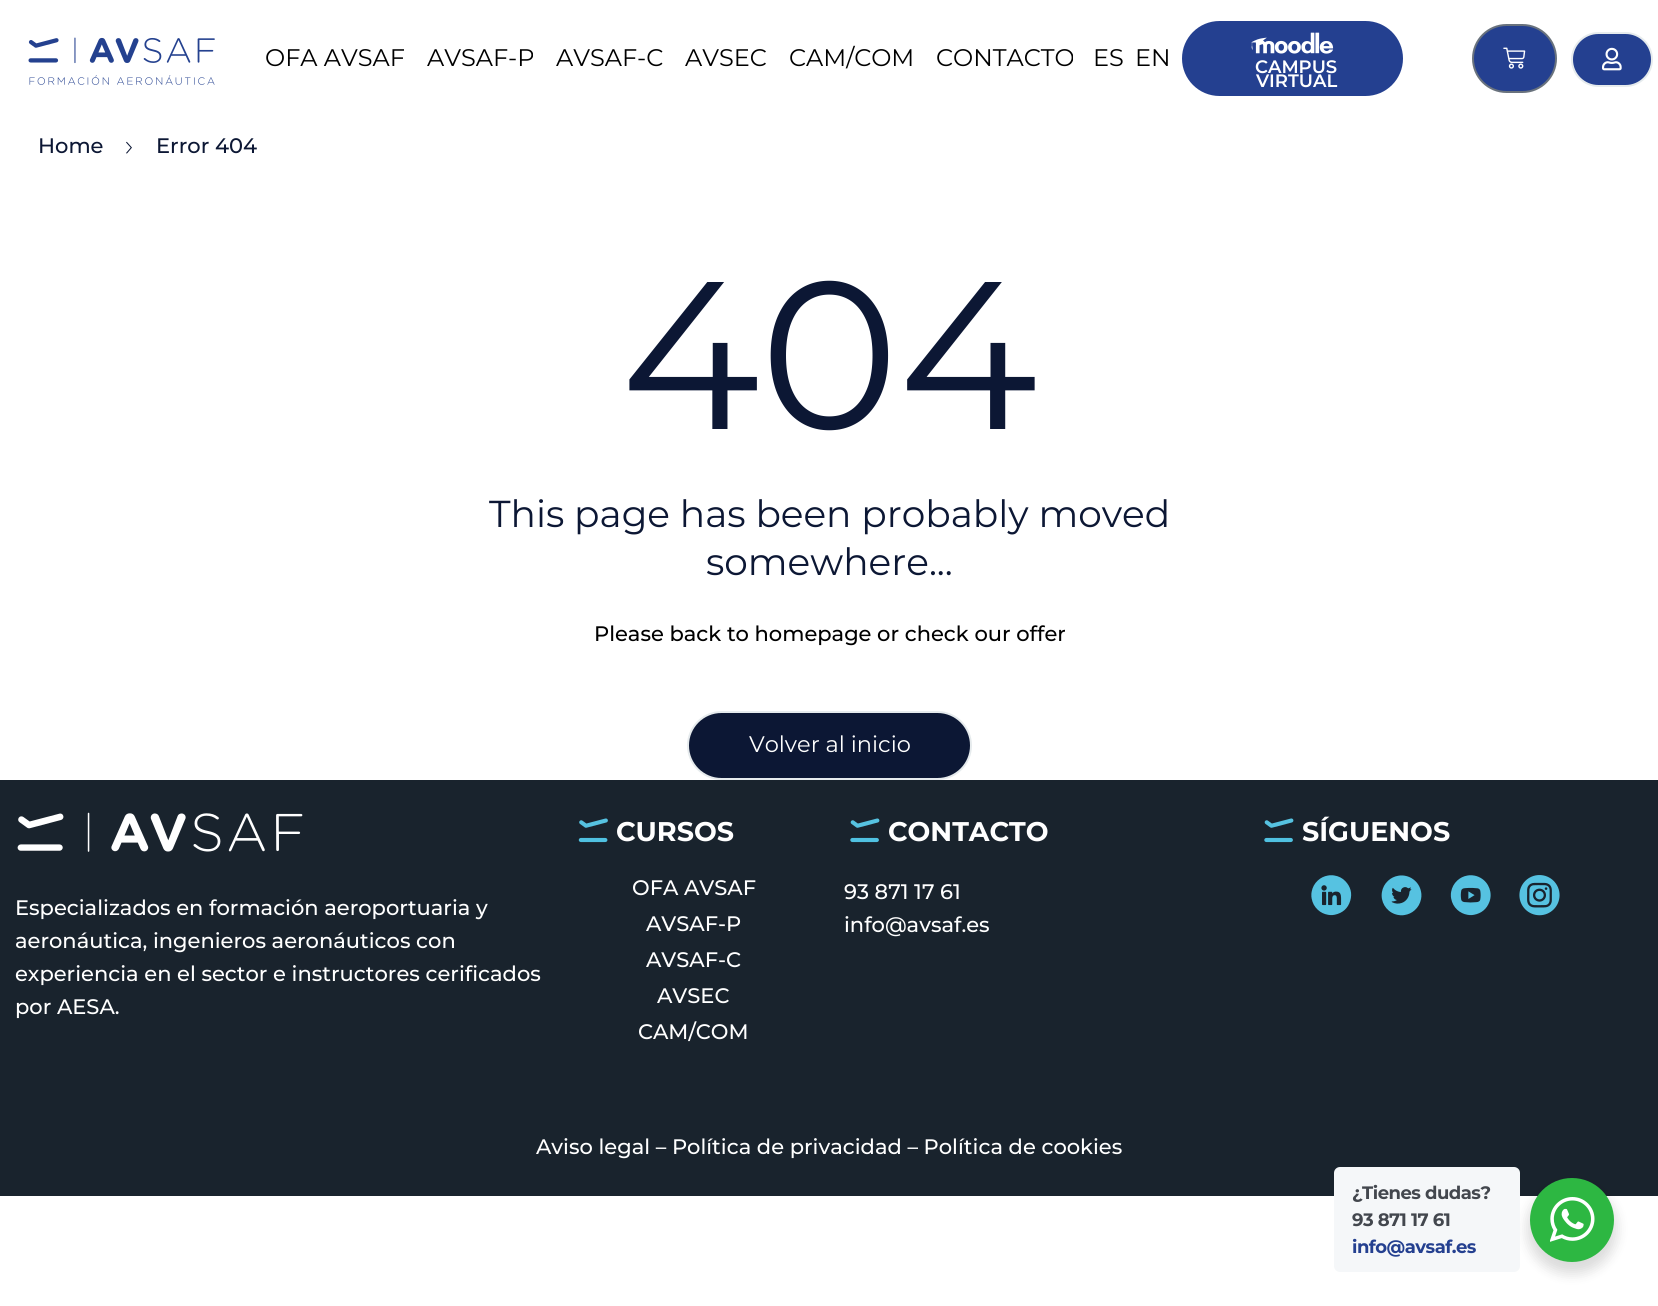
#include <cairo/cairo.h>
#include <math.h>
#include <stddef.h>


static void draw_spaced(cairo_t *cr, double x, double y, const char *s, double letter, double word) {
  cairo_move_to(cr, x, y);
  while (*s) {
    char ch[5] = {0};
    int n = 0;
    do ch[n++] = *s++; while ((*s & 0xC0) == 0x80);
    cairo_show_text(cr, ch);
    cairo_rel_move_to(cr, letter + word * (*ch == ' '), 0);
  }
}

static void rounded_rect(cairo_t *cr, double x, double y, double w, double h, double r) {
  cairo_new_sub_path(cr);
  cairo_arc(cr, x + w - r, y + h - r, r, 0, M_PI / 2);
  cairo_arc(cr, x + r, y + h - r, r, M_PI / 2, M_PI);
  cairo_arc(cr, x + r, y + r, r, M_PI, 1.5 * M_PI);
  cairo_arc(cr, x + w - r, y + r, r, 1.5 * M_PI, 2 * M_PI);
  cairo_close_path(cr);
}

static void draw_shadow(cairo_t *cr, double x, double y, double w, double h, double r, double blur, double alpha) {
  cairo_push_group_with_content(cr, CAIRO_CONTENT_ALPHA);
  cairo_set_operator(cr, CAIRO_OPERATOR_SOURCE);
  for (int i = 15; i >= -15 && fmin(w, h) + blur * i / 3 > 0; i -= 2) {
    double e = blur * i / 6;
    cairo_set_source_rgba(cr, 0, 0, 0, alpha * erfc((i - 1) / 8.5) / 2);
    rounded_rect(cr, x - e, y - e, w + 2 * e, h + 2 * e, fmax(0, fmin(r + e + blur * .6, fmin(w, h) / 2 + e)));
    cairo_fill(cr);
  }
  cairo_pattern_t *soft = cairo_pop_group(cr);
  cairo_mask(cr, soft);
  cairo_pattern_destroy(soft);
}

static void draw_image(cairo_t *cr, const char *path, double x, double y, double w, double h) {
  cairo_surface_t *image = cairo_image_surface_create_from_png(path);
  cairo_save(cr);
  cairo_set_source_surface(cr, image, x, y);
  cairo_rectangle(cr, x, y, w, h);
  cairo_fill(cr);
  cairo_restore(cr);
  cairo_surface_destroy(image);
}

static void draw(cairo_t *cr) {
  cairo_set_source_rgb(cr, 1, 1, 1);
  cairo_paint(cr);
  draw_image(cr, "images/1.png", 28, 37, 187, 48);
  cairo_set_source_rgb(cr, 36 / 255.0, 64 / 255.0, 144 / 255.0);
  rounded_rect(cr, 1182, 21, 221, 75, 37.5);
  cairo_fill(cr);
  draw_image(cr, "images/2.png", 1251, 32, 83, 22);
  rounded_rect(cr, 1473, 25, 83, 67, 33.5);
  cairo_fill_preserve(cr);
  cairo_set_source_rgb(cr, 105 / 255.0, 114 / 255.0, 125 / 255.0);
  cairo_stroke(cr);
  draw_image(cr, "images/3.png", 1503, 47, 23, 22);
  cairo_set_source_rgb(cr, 36 / 255.0, 64 / 255.0, 144 / 255.0);
  rounded_rect(cr, 1572, 33, 80, 53, 26.5);
  cairo_fill_preserve(cr);
  cairo_set_source_rgb(cr, 230 / 255.0, 235 / 255.0, 237 / 255.0);
  cairo_stroke(cr);
  draw_image(cr, "images/4.png", 1602, 47, 20, 24);
  draw_image(cr, "images/5.png", 126, 141, 6, 13);
  cairo_set_source_rgb(cr, 12 / 255.0, 23 / 255.0, 52 / 255.0);
  rounded_rect(cr, 688, 712, 283, 67, 33.5);
  cairo_fill_preserve(cr);
  cairo_set_source_rgb(cr, 230 / 255.0, 235 / 255.0, 237 / 255.0);
  cairo_stroke(cr);
  cairo_set_source_rgb(cr, 25 / 255.0, 35 / 255.0, 45 / 255.0);
  cairo_rectangle(cr, 0, 780, 1658, 416);
  cairo_fill(cr);
  draw_image(cr, "images/6.png", 578, 818, 30, 25);
  draw_image(cr, "images/7.png", 850, 818, 30, 25);
  draw_image(cr, "images/7.png", 1264, 818, 30, 25);
  draw_image(cr, "images/8.png", 1311, 875, 41, 41);
  draw_image(cr, "images/9.png", 1381, 875, 41, 41);
  draw_image(cr, "images/10.png", 1450, 875, 41, 41);
  draw_image(cr, "images/11.png", 1519, 875, 41, 41);
  draw_image(cr, "images/12.png", 17, 812, 286, 40);
  cairo_set_source_rgb(cr, 0, 0, 0);
  draw_shadow(cr, 1527, 1184, 90, 90, 45, 6, 0.14);
  cairo_set_source_rgb(cr, 245 / 255.0, 247 / 255.0, 249 / 255.0);
  rounded_rect(cr, 1334, 1167, 186, 105, 6);
  cairo_fill(cr);
  cairo_set_source_rgb(cr, 45 / 255.0, 183 / 255.0, 66 / 255.0);
  cairo_arc(cr, 1572, 1220, 42, 0, 2 * M_PI);
  cairo_fill(cr);
  draw_image(cr, "images/13.png", 1550, 1197, 45, 45);
  cairo_select_font_face(cr, "Montserrat", CAIRO_FONT_SLANT_NORMAL, CAIRO_FONT_WEIGHT_NORMAL);
  cairo_set_font_size(cr, 24);
  cairo_set_source_rgb(cr, 0, 0, 0);
  cairo_move_to(cr, 265, 66);
  cairo_show_text(cr, "OFA AVSAF");
  cairo_move_to(cr, 427, 66);
  cairo_show_text(cr, "AVSAF-P");
  cairo_move_to(cr, 556, 66);
  cairo_show_text(cr, "AVSAF-C");
  cairo_move_to(cr, 685, 66);
  cairo_show_text(cr, "AVSEC");
  cairo_move_to(cr, 789, 66);
  cairo_show_text(cr, "CAM/COM");
  cairo_move_to(cr, 936, 66);
  cairo_show_text(cr, "CONTACTO");
  cairo_move_to(cr, 1093, 66);
  cairo_show_text(cr, "ES");
  cairo_move_to(cr, 1135, 66);
  cairo_show_text(cr, "EN");
  cairo_select_font_face(cr, "Montserrat SemiBold", CAIRO_FONT_SLANT_NORMAL, CAIRO_FONT_WEIGHT_NORMAL);
  cairo_set_font_size(cr, 18);
  cairo_set_source_rgb(cr, 1, 1, 1);
  cairo_move_to(cr, 1255, 73);
  cairo_show_text(cr, "CAMPUS");
  cairo_move_to(cr, 1256, 87);
  cairo_show_text(cr, "VIRTUAL");
  cairo_select_font_face(cr, "Montserrat Medium", CAIRO_FONT_SLANT_NORMAL, CAIRO_FONT_WEIGHT_NORMAL);
  cairo_set_font_size(cr, 21);
  cairo_set_source_rgb(cr, 12 / 255.0, 23 / 255.0, 52 / 255.0);
  cairo_move_to(cr, 38, 153);
  cairo_show_text(cr, "Home");
  cairo_move_to(cr, 156, 153);
  cairo_show_text(cr, "Error 404");
  cairo_select_font_face(cr, "Montserrat", CAIRO_FONT_SLANT_NORMAL, CAIRO_FONT_WEIGHT_NORMAL);
  cairo_set_font_size(cr, 210);
  cairo_move_to(cr, 621, 429);
  cairo_show_text(cr, "404");
  cairo_set_font_size(cr, 37.5);
  cairo_move_to(cr, 489, 527);
  cairo_show_text(cr, "This page has been probably moved");
  cairo_move_to(cr, 706, 575);
  cairo_show_text(cr, "somewhere...");
  cairo_select_font_face(cr, "Montserrat Medium", CAIRO_FONT_SLANT_NORMAL, CAIRO_FONT_WEIGHT_NORMAL);
  cairo_set_font_size(cr, 21);
  cairo_set_source_rgb(cr, 0, 0, 0);
  cairo_move_to(cr, 594, 641);
  cairo_show_text(cr, "Please back to homepage or check our offer");
  cairo_select_font_face(cr, "Montserrat", CAIRO_FONT_SLANT_NORMAL, CAIRO_FONT_WEIGHT_NORMAL);
  cairo_set_font_size(cr, 22.5);
  cairo_set_source_rgb(cr, 1, 1, 1);
  cairo_move_to(cr, 749, 752);
  cairo_show_text(cr, "Volver al inicio");
  cairo_select_font_face(cr, "Montserrat", CAIRO_FONT_SLANT_NORMAL, CAIRO_FONT_WEIGHT_BOLD);
  cairo_set_font_size(cr, 27);
  cairo_move_to(cr, 616, 841);
  cairo_show_text(cr, "CURSOS");
  cairo_select_font_face(cr, "Montserrat Medium", CAIRO_FONT_SLANT_NORMAL, CAIRO_FONT_WEIGHT_NORMAL);
  cairo_set_font_size(cr, 21);
  cairo_move_to(cr, 632, 895);
  cairo_show_text(cr, "OFA AVSAF");
  cairo_move_to(cr, 646, 931);
  cairo_show_text(cr, "AVSAF-P");
  cairo_move_to(cr, 646, 967);
  cairo_show_text(cr, "AVSAF-C");
  cairo_move_to(cr, 657, 1003);
  cairo_show_text(cr, "AVSEC");
  cairo_move_to(cr, 638, 1039);
  cairo_show_text(cr, "CAM/COM");
  cairo_select_font_face(cr, "Montserrat", CAIRO_FONT_SLANT_NORMAL, CAIRO_FONT_WEIGHT_BOLD);
  cairo_set_font_size(cr, 27);
  cairo_move_to(cr, 888, 841);
  cairo_show_text(cr, "CONTACTO");
  cairo_select_font_face(cr, "Montserrat Medium", CAIRO_FONT_SLANT_NORMAL, CAIRO_FONT_WEIGHT_NORMAL);
  cairo_set_font_size(cr, 21);
  cairo_move_to(cr, 844, 899);
  cairo_show_text(cr, "93 871 17 61");
  cairo_move_to(cr, 844, 932);
  cairo_show_text(cr, "info@avsaf.es");
  cairo_select_font_face(cr, "Montserrat", CAIRO_FONT_SLANT_NORMAL, CAIRO_FONT_WEIGHT_BOLD);
  cairo_set_font_size(cr, 27);
  cairo_move_to(cr, 1302, 841);
  cairo_show_text(cr, "SÍGUENOS");
  cairo_select_font_face(cr, "Montserrat Medium", CAIRO_FONT_SLANT_NORMAL, CAIRO_FONT_WEIGHT_NORMAL);
  cairo_set_font_size(cr, 21);
  cairo_move_to(cr, 15, 915);
  cairo_show_text(cr, "Especializados en formación aeroportuaria y");
  cairo_move_to(cr, 15, 948);
  cairo_show_text(cr, "aeronáutica, ingenieros aeronáuticos con");
  cairo_move_to(cr, 15, 981);
  cairo_show_text(cr, "experiencia en el sector e instructores cerificados");
  cairo_move_to(cr, 15, 1014);
  cairo_show_text(cr, "por AESA.");
  cairo_move_to(cr, 536, 1154);
  cairo_show_text(cr, "Aviso legal – Política de privacidad – Política de cookies");
  cairo_select_font_face(cr, "Montserrat", CAIRO_FONT_SLANT_NORMAL, CAIRO_FONT_WEIGHT_BOLD);
  cairo_set_font_size(cr, 18);
  cairo_set_source_rgb(cr, 67 / 255.0, 71 / 255.0, 78 / 255.0);
  draw_spaced(cr, 1352, 1199, "¿Tienes dudas?", -0.5, 0);
  draw_spaced(cr, 1352, 1226, "93 871 17 61", -0.5, 0);
  cairo_set_source_rgb(cr, 36 / 255.0, 64 / 255.0, 144 / 255.0);
  draw_spaced(cr, 1352, 1253, "info@avsaf.es", -0.5, 0);
}

int main(void) {
  cairo_surface_t *surface = cairo_image_surface_create(CAIRO_FORMAT_RGB24, 1658, 1306);
  cairo_t *cr = cairo_create(surface);
  cairo_font_options_t *options = cairo_font_options_create();
  cairo_font_options_set_hint_metrics(options, CAIRO_HINT_METRICS_OFF);
  cairo_font_options_set_hint_style(options, CAIRO_HINT_STYLE_NONE);
  cairo_set_font_options(cr, options);
  cairo_set_miter_limit(cr, 4);
  draw(cr);
  cairo_surface_write_to_png(surface, "out.png");
  cairo_font_options_destroy(options);
  cairo_destroy(cr);
  cairo_surface_destroy(surface);
  return 0;
}
